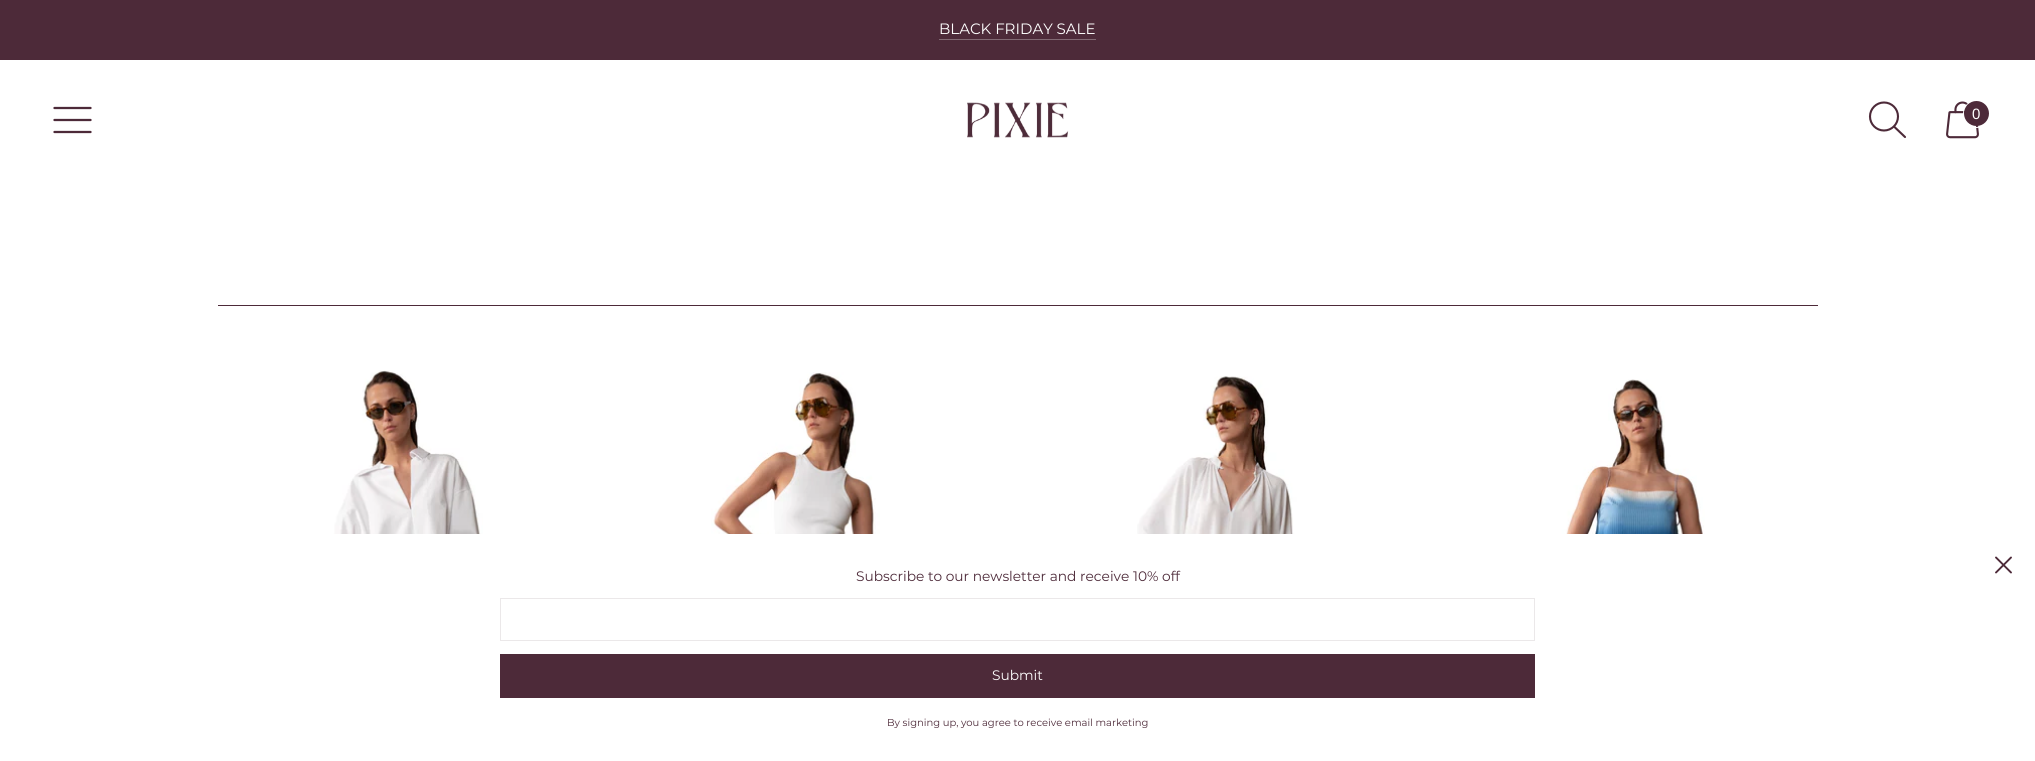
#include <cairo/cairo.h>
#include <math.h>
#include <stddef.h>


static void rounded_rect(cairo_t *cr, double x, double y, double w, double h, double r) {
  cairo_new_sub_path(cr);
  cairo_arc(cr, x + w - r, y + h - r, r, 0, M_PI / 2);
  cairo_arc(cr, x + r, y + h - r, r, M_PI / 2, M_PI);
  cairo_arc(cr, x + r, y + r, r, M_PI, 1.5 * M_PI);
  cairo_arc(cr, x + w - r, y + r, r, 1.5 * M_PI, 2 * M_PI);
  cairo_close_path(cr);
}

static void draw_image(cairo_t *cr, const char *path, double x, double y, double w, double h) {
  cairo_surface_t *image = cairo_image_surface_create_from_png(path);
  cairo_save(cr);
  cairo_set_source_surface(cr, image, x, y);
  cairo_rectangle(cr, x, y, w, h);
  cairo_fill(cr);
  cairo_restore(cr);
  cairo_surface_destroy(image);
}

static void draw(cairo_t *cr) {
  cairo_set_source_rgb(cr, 1, 1, 1);
  cairo_paint(cr);
  cairo_set_source_rgb(cr, 77 / 255.0, 42 / 255.0, 57 / 255.0);
  cairo_rectangle(cr, 0, 0, 2035, 60);
  cairo_fill(cr);
  cairo_set_source_rgb(cr, 130 / 255.0, 106 / 255.0, 116 / 255.0);
  cairo_rectangle(cr, 939, 39, 157, 1);
  cairo_fill(cr);
  cairo_new_path(cr);
  cairo_move_to(cr, 54.5, 120);
  cairo_line_to(cr, 90.5, 120);
  cairo_move_to(cr, 54.5, 108);
  cairo_line_to(cr, 90.5, 108);
  cairo_move_to(cr, 54.5, 132);
  cairo_line_to(cr, 90.5, 132);
  cairo_set_source_rgb(cr, 77 / 255.0, 42 / 255.0, 57 / 255.0);
  cairo_set_line_width(cr, 2.3);
  cairo_set_line_cap(cr, CAIRO_LINE_CAP_ROUND);
  cairo_set_line_join(cr, CAIRO_LINE_JOIN_ROUND);
  cairo_stroke(cr);
  draw_image(cr, "images/1.png", 967, 102, 102, 36);
  cairo_arc(cr, 1884, 116.5, 14, 0, 2 * M_PI);
  cairo_set_line_width(cr, 2.1);
  cairo_set_line_cap(cr, CAIRO_LINE_CAP_BUTT);
  cairo_set_line_join(cr, CAIRO_LINE_JOIN_MITER);
  cairo_stroke(cr);
  cairo_new_path(cr);
  cairo_move_to(cr, 1894.5, 127);
  cairo_line_to(cr, 1905, 137);
  cairo_set_line_cap(cr, CAIRO_LINE_CAP_ROUND);
  cairo_set_line_join(cr, CAIRO_LINE_JOIN_ROUND);
  cairo_stroke(cr);
  draw_image(cr, "images/2.png", 1946, 101, 33, 38);
  rounded_rect(cr, 1963.5, 100.5, 26, 27, 13);
  cairo_set_source_rgb(cr, 1, 1, 1);
  cairo_set_line_width(cr, 1);
  cairo_set_line_cap(cr, CAIRO_LINE_CAP_BUTT);
  cairo_set_line_join(cr, CAIRO_LINE_JOIN_MITER);
  cairo_stroke(cr);
  cairo_set_source_rgb(cr, 77 / 255.0, 42 / 255.0, 57 / 255.0);
  cairo_arc(cr, 1976.5, 113.5, 12.5, 0, 2 * M_PI);
  cairo_fill(cr);
  cairo_rectangle(cr, 218, 305, 1600, 1);
  cairo_fill(cr);
  draw_image(cr, "images/3.png", 306, 370, 177, 164);
  draw_image(cr, "images/4.png", 711, 372, 177, 162);
  draw_image(cr, "images/5.png", 1137, 376, 163, 158);
  draw_image(cr, "images/6.png", 1560, 379, 146, 155);
  cairo_new_path(cr);
  cairo_move_to(cr, 1996, 557.5);
  cairo_line_to(cr, 2011, 572.5);
  cairo_move_to(cr, 1996, 572.5);
  cairo_line_to(cr, 2011, 557.5);
  cairo_close_path(cr);
  cairo_set_line_width(cr, 1.9);
  cairo_set_line_cap(cr, CAIRO_LINE_CAP_ROUND);
  cairo_set_line_join(cr, CAIRO_LINE_JOIN_ROUND);
  cairo_stroke(cr);
  cairo_rectangle(cr, 500.5, 598.5, 1034, 42);
  cairo_set_source_rgb(cr, 235 / 255.0, 232 / 255.0, 233 / 255.0);
  cairo_set_line_width(cr, 1);
  cairo_set_line_cap(cr, CAIRO_LINE_CAP_BUTT);
  cairo_set_line_join(cr, CAIRO_LINE_JOIN_MITER);
  cairo_stroke(cr);
  cairo_set_source_rgb(cr, 77 / 255.0, 42 / 255.0, 57 / 255.0);
  cairo_rectangle(cr, 500, 654, 1035, 44);
  cairo_fill(cr);
  cairo_select_font_face(cr, "Montserrat Thin", CAIRO_FONT_SLANT_NORMAL, CAIRO_FONT_WEIGHT_NORMAL);
  cairo_set_font_size(cr, 15);
  cairo_set_source_rgb(cr, 1, 1, 1);
  cairo_move_to(cr, 939, 34);
  cairo_show_text(cr, "BLACK FRIDAY SALE");
  cairo_select_font_face(cr, "Liberation Sans", CAIRO_FONT_SLANT_NORMAL, CAIRO_FONT_WEIGHT_NORMAL);
  cairo_move_to(cr, 1972, 119);
  cairo_show_text(cr, "0");
  cairo_select_font_face(cr, "Montserrat Thin", CAIRO_FONT_SLANT_NORMAL, CAIRO_FONT_WEIGHT_NORMAL);
  cairo_set_font_size(cr, 13.75);
  cairo_set_source_rgb(cr, 77 / 255.0, 42 / 255.0, 57 / 255.0);
  cairo_move_to(cr, 856, 581);
  cairo_show_text(cr, "Subscribe to our newsletter and receive 10% off");
  cairo_set_source_rgb(cr, 1, 1, 1);
  cairo_move_to(cr, 992, 680);
  cairo_show_text(cr, "Submit");
  cairo_set_font_size(cr, 10);
  cairo_set_source_rgb(cr, 77 / 255.0, 42 / 255.0, 57 / 255.0);
  cairo_move_to(cr, 887, 726);
  cairo_show_text(cr, "By signing up, you agree to receive email marketing");
}

int main(void) {
  cairo_surface_t *surface = cairo_image_surface_create(CAIRO_FORMAT_RGB24, 2035, 761);
  cairo_t *cr = cairo_create(surface);
  cairo_font_options_t *options = cairo_font_options_create();
  cairo_font_options_set_hint_metrics(options, CAIRO_HINT_METRICS_OFF);
  cairo_font_options_set_hint_style(options, CAIRO_HINT_STYLE_NONE);
  cairo_set_font_options(cr, options);
  cairo_set_miter_limit(cr, 4);
  draw(cr);
  cairo_surface_write_to_png(surface, "out.png");
  cairo_font_options_destroy(options);
  cairo_destroy(cr);
  cairo_surface_destroy(surface);
  return 0;
}
